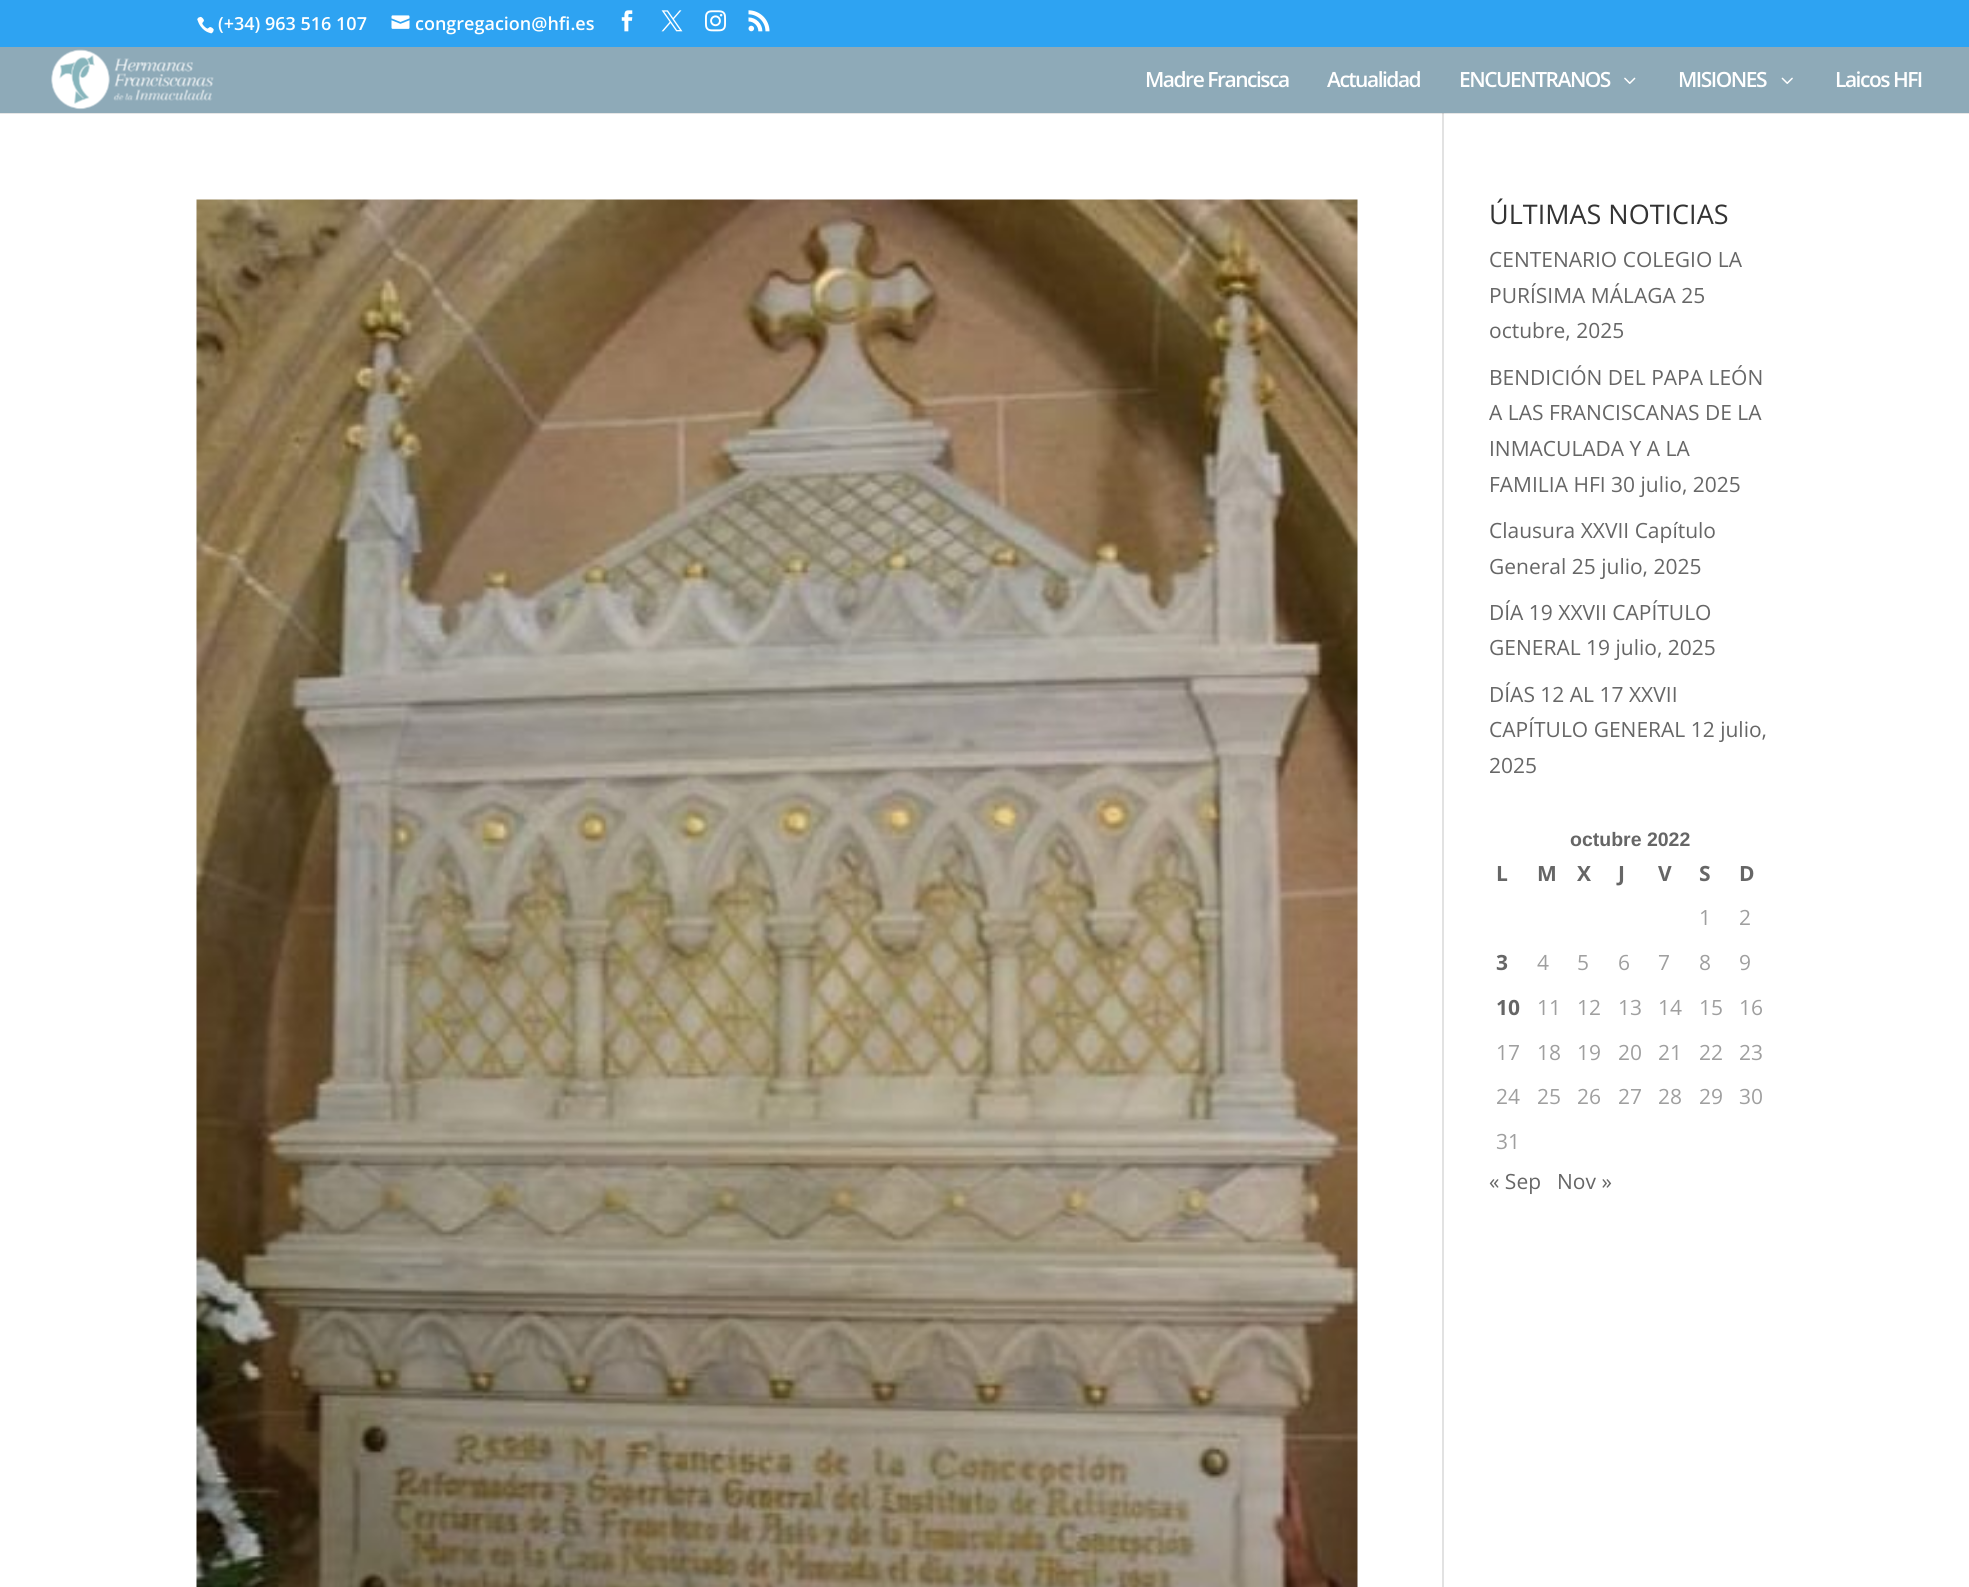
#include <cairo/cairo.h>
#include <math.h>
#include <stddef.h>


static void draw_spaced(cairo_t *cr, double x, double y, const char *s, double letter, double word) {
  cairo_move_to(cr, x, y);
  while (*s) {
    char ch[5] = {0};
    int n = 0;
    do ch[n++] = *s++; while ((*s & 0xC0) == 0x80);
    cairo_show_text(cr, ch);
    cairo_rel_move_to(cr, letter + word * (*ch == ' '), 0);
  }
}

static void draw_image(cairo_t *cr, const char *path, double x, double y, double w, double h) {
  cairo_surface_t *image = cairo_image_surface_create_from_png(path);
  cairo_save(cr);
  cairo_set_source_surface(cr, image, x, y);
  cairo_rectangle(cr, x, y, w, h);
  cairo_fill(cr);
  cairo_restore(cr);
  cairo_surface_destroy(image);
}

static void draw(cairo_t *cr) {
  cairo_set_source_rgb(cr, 1, 1, 1);
  cairo_paint(cr);
  cairo_set_source_rgb(cr, 46 / 255.0, 163 / 255.0, 242 / 255.0);
  cairo_rectangle(cr, 0, 0, 1969, 47);
  cairo_fill(cr);
  draw_image(cr, "images/1.png", 197, 16, 17, 18);
  draw_image(cr, "images/2.png", 391, 15, 19, 14);
  draw_image(cr, "images/3.png", 621, 10, 12, 22);
  draw_image(cr, "images/4.png", 661, 10, 22, 22);
  draw_image(cr, "images/5.png", 705, 10, 21, 22);
  draw_image(cr, "images/6.png", 748, 10, 22, 22);
  cairo_set_source_rgb(cr, 226 / 255.0, 226 / 255.0, 226 / 255.0);
  cairo_rectangle(cr, 1442, 113, 2, 1474);
  cairo_fill(cr);
  cairo_set_source_rgba(cr, 0, 0, 0, 0.1);
  cairo_new_path(cr);
  cairo_move_to(cr, 0, 112);
  cairo_line_to(cr, 0, 114);
  cairo_line_to(cr, 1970, 114);
  cairo_line_to(cr, 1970, 48);
  cairo_line_to(cr, 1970, 112);
  cairo_close_path(cr);
  cairo_fill(cr);
  cairo_set_source_rgb(cr, 142 / 255.0, 170 / 255.0, 184 / 255.0);
  cairo_rectangle(cr, 0, 47, 1969, 66);
  cairo_fill(cr);
  draw_image(cr, "images/7.png", 51, 49, 163, 61);
  draw_image(cr, "images/8.png", 1624, 77, 12, 7);
  draw_image(cr, "images/9.png", 1781, 77, 12, 7);
  draw_image(cr, "images/10.png", 196, 199, 1162, 1388);
  cairo_select_font_face(cr, "Open Sans SemiBold", CAIRO_FONT_SLANT_NORMAL, CAIRO_FONT_WEIGHT_NORMAL);
  cairo_set_font_size(cr, 18);
  cairo_set_source_rgb(cr, 1, 1, 1);
  cairo_move_to(cr, 218, 30);
  cairo_show_text(cr, "(+34) 963 516 107");
  cairo_move_to(cr, 415, 30);
  cairo_show_text(cr, "congregacion@hfi.es");
  cairo_set_font_size(cr, 21);
  draw_spaced(cr, 1145, 87, "Madre Francisca", -1.5, 0);
  draw_spaced(cr, 1327, 87, "Actualidad", -1.5, 0);
  draw_spaced(cr, 1459, 87, "ENCUENTRANOS", -1.5, 0);
  draw_spaced(cr, 1678, 87, "MISIONES", -1.5, 0);
  draw_spaced(cr, 1835, 87, "Laicos HFI", -1.5, 0);
  cairo_select_font_face(cr, "Open Sans", CAIRO_FONT_SLANT_NORMAL, CAIRO_FONT_WEIGHT_NORMAL);
  cairo_set_font_size(cr, 27);
  cairo_set_source_rgb(cr, 51 / 255.0, 51 / 255.0, 51 / 255.0);
  cairo_move_to(cr, 1489, 224);
  cairo_show_text(cr, "ÚLTIMAS NOTICIAS");
  cairo_set_font_size(cr, 21);
  cairo_set_source_rgb(cr, 102 / 255.0, 102 / 255.0, 102 / 255.0);
  cairo_move_to(cr, 1489, 267);
  cairo_show_text(cr, "CENTENARIO COLEGIO LA");
  cairo_move_to(cr, 1489, 303);
  cairo_show_text(cr, "PURÍSIMA MÁLAGA 25");
  cairo_move_to(cr, 1489, 338);
  cairo_show_text(cr, "octubre, 2025");
  cairo_move_to(cr, 1489, 385);
  cairo_show_text(cr, "BENDICIÓN DEL PAPA LEÓN");
  cairo_move_to(cr, 1489, 420);
  cairo_show_text(cr, "A LAS FRANCISCANAS DE LA");
  cairo_move_to(cr, 1489, 456);
  cairo_show_text(cr, "INMACULADA Y A LA");
  cairo_move_to(cr, 1489, 492);
  cairo_show_text(cr, "FAMILIA HFI 30 julio, 2025");
  cairo_move_to(cr, 1489, 538);
  cairo_show_text(cr, "Clausura XXVII Capítulo");
  cairo_move_to(cr, 1489, 574);
  cairo_show_text(cr, "General 25 julio, 2025");
  cairo_move_to(cr, 1489, 620);
  cairo_show_text(cr, "DÍA 19 XXVII CAPÍTULO");
  cairo_move_to(cr, 1489, 655);
  cairo_show_text(cr, "GENERAL 19 julio, 2025");
  cairo_move_to(cr, 1489, 702);
  cairo_show_text(cr, "DÍAS 12 AL 17 XXVII");
  cairo_move_to(cr, 1489, 737);
  cairo_show_text(cr, "CAPÍTULO GENERAL 12 julio,");
  cairo_move_to(cr, 1489, 773);
  cairo_show_text(cr, "2025");
  cairo_select_font_face(cr, "Liberation Sans", CAIRO_FONT_SLANT_NORMAL, CAIRO_FONT_WEIGHT_BOLD);
  cairo_set_font_size(cr, 19.5);
  cairo_move_to(cr, 1570, 846);
  cairo_show_text(cr, "octubre 2022");
  cairo_select_font_face(cr, "Open Sans", CAIRO_FONT_SLANT_NORMAL, CAIRO_FONT_WEIGHT_BOLD);
  cairo_set_font_size(cr, 21);
  cairo_move_to(cr, 1496, 881);
  cairo_show_text(cr, "L");
  cairo_move_to(cr, 1537, 881);
  cairo_show_text(cr, "M");
  cairo_move_to(cr, 1577, 881);
  cairo_show_text(cr, "X");
  cairo_move_to(cr, 1618, 881);
  cairo_show_text(cr, "J");
  cairo_move_to(cr, 1658, 881);
  cairo_show_text(cr, "V");
  cairo_move_to(cr, 1699, 881);
  cairo_show_text(cr, "S");
  cairo_move_to(cr, 1739, 881);
  cairo_show_text(cr, "D");
  cairo_select_font_face(cr, "Open Sans", CAIRO_FONT_SLANT_NORMAL, CAIRO_FONT_WEIGHT_NORMAL);
  cairo_set_source_rgb(cr, 159 / 255.0, 159 / 255.0, 159 / 255.0);
  cairo_move_to(cr, 1699, 925);
  cairo_show_text(cr, "1");
  cairo_move_to(cr, 1739, 925);
  cairo_show_text(cr, "2");
  cairo_select_font_face(cr, "Open Sans", CAIRO_FONT_SLANT_NORMAL, CAIRO_FONT_WEIGHT_BOLD);
  cairo_set_source_rgb(cr, 102 / 255.0, 102 / 255.0, 102 / 255.0);
  cairo_move_to(cr, 1496, 970);
  cairo_show_text(cr, "3");
  cairo_select_font_face(cr, "Open Sans", CAIRO_FONT_SLANT_NORMAL, CAIRO_FONT_WEIGHT_NORMAL);
  cairo_set_source_rgb(cr, 159 / 255.0, 159 / 255.0, 159 / 255.0);
  cairo_move_to(cr, 1537, 970);
  cairo_show_text(cr, "4");
  cairo_move_to(cr, 1577, 970);
  cairo_show_text(cr, "5");
  cairo_move_to(cr, 1618, 970);
  cairo_show_text(cr, "6");
  cairo_move_to(cr, 1658, 970);
  cairo_show_text(cr, "7");
  cairo_move_to(cr, 1699, 970);
  cairo_show_text(cr, "8");
  cairo_move_to(cr, 1739, 970);
  cairo_show_text(cr, "9");
  cairo_select_font_face(cr, "Open Sans", CAIRO_FONT_SLANT_NORMAL, CAIRO_FONT_WEIGHT_BOLD);
  cairo_set_source_rgb(cr, 102 / 255.0, 102 / 255.0, 102 / 255.0);
  cairo_move_to(cr, 1496, 1015);
  cairo_show_text(cr, "10");
  cairo_select_font_face(cr, "Open Sans", CAIRO_FONT_SLANT_NORMAL, CAIRO_FONT_WEIGHT_NORMAL);
  cairo_set_source_rgb(cr, 159 / 255.0, 159 / 255.0, 159 / 255.0);
  cairo_move_to(cr, 1537, 1015);
  cairo_show_text(cr, "11");
  cairo_move_to(cr, 1577, 1015);
  cairo_show_text(cr, "12");
  cairo_move_to(cr, 1618, 1015);
  cairo_show_text(cr, "13");
  cairo_move_to(cr, 1658, 1015);
  cairo_show_text(cr, "14");
  cairo_move_to(cr, 1699, 1015);
  cairo_show_text(cr, "15");
  cairo_move_to(cr, 1739, 1015);
  cairo_show_text(cr, "16");
  cairo_move_to(cr, 1496, 1060);
  cairo_show_text(cr, "17");
  cairo_move_to(cr, 1537, 1060);
  cairo_show_text(cr, "18");
  cairo_move_to(cr, 1577, 1060);
  cairo_show_text(cr, "19");
  cairo_move_to(cr, 1618, 1060);
  cairo_show_text(cr, "20");
  cairo_move_to(cr, 1658, 1060);
  cairo_show_text(cr, "21");
  cairo_move_to(cr, 1699, 1060);
  cairo_show_text(cr, "22");
  cairo_move_to(cr, 1739, 1060);
  cairo_show_text(cr, "23");
  cairo_move_to(cr, 1496, 1104);
  cairo_show_text(cr, "24");
  cairo_move_to(cr, 1537, 1104);
  cairo_show_text(cr, "25");
  cairo_move_to(cr, 1577, 1104);
  cairo_show_text(cr, "26");
  cairo_move_to(cr, 1618, 1104);
  cairo_show_text(cr, "27");
  cairo_move_to(cr, 1658, 1104);
  cairo_show_text(cr, "28");
  cairo_move_to(cr, 1699, 1104);
  cairo_show_text(cr, "29");
  cairo_move_to(cr, 1739, 1104);
  cairo_show_text(cr, "30");
  cairo_move_to(cr, 1496, 1149);
  cairo_show_text(cr, "31");
  cairo_set_source_rgb(cr, 102 / 255.0, 102 / 255.0, 102 / 255.0);
  cairo_move_to(cr, 1489, 1189);
  cairo_show_text(cr, "« Sep");
  cairo_move_to(cr, 1557, 1189);
  cairo_show_text(cr, "Nov »");
}

int main(void) {
  cairo_surface_t *surface = cairo_image_surface_create(CAIRO_FORMAT_RGB24, 1969, 1587);
  cairo_t *cr = cairo_create(surface);
  cairo_font_options_t *options = cairo_font_options_create();
  cairo_font_options_set_hint_metrics(options, CAIRO_HINT_METRICS_OFF);
  cairo_font_options_set_hint_style(options, CAIRO_HINT_STYLE_NONE);
  cairo_set_font_options(cr, options);
  cairo_set_miter_limit(cr, 4);
  draw(cr);
  cairo_surface_write_to_png(surface, "out.png");
  cairo_font_options_destroy(options);
  cairo_destroy(cr);
  cairo_surface_destroy(surface);
  return 0;
}
